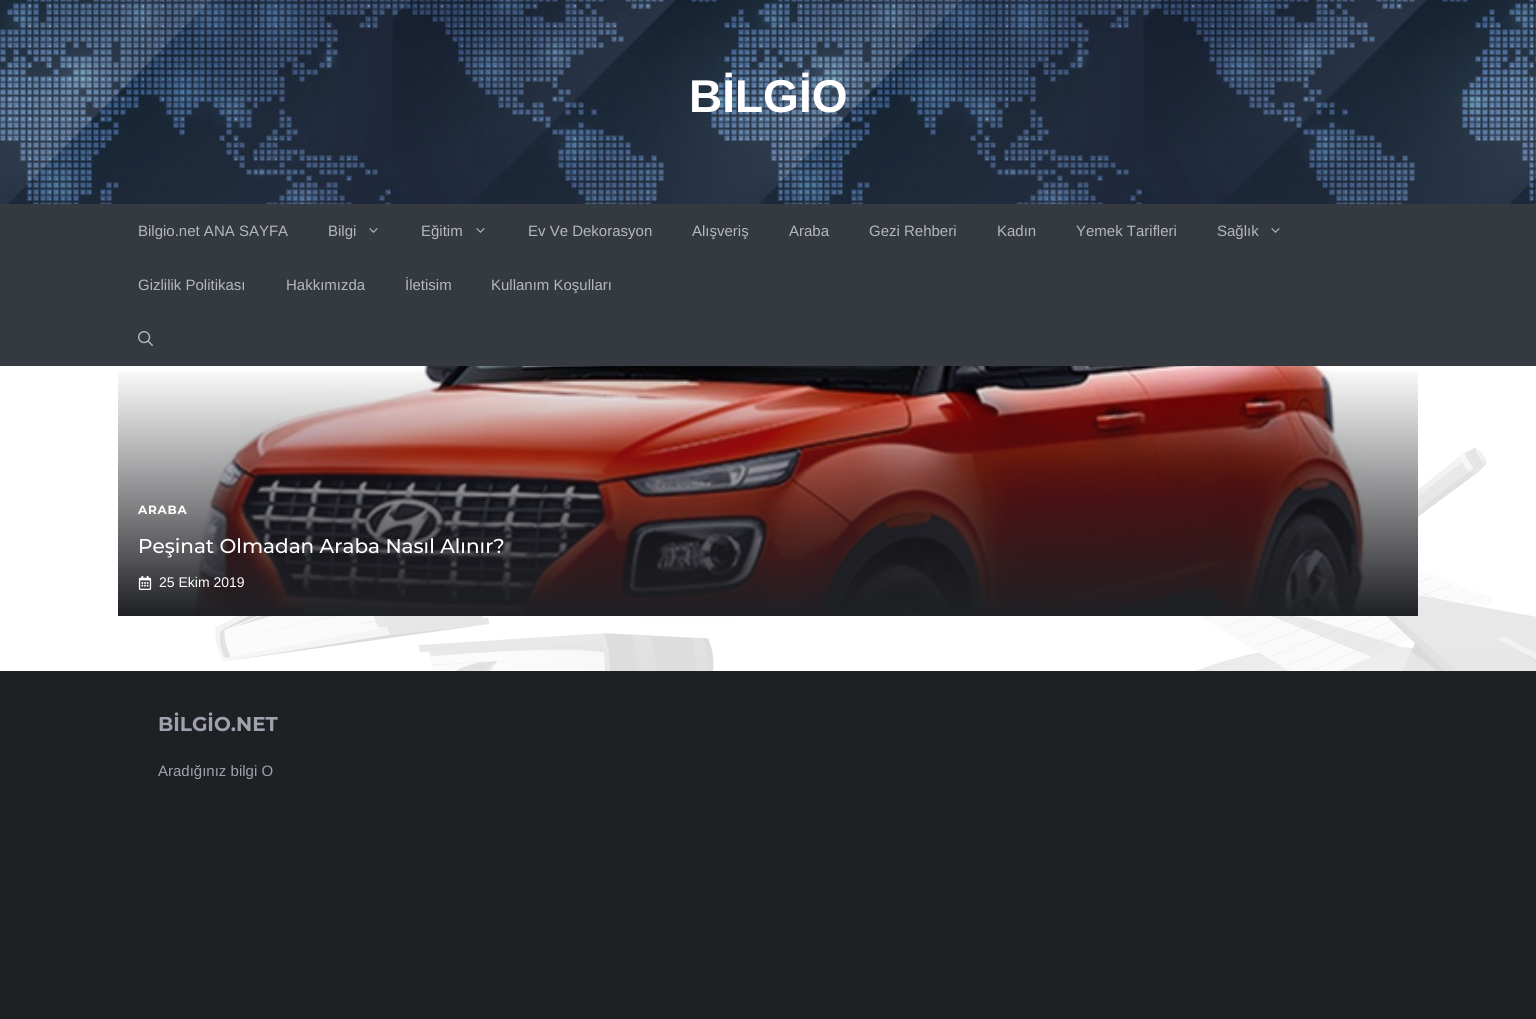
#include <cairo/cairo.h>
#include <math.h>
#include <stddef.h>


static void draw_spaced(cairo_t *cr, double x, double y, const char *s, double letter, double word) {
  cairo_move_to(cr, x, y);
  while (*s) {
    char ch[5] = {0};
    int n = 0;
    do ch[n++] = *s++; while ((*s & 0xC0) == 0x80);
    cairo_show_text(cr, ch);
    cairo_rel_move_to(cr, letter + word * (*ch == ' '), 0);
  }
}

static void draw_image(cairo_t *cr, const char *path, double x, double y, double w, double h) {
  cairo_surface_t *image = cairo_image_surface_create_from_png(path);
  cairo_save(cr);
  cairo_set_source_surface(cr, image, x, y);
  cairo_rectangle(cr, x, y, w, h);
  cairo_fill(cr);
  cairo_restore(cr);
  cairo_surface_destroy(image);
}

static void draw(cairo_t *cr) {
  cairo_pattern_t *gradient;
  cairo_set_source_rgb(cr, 1, 1, 1);
  cairo_paint(cr);
  draw_image(cr, "images/1.png", 215, 448, 1321, 223);
  draw_image(cr, "images/2.png", 0, 0, 1536, 204);
  cairo_set_source_rgb(cr, 52 / 255.0, 58 / 255.0, 64 / 255.0);
  cairo_rectangle(cr, 0, 204, 1536, 162);
  cairo_fill(cr);
  draw_image(cr, "images/3.png", 369, 228, 9, 5);
  draw_image(cr, "images/3.png", 476, 228, 9, 5);
  draw_image(cr, "images/3.png", 1271, 228, 9, 5);
  draw_image(cr, "images/4.png", 138, 331, 15, 15);
  draw_image(cr, "images/5.png", 178, 366, 1240, 249);
  gradient = cairo_pattern_create_linear(768, 366, 768, 616);
  cairo_pattern_add_color_stop_rgba(gradient, 0, 31 / 255.0, 32 / 255.0, 36 / 255.0, 0);
  cairo_pattern_add_color_stop_rgba(gradient, 1, 31 / 255.0, 32 / 255.0, 36 / 255.0, 1);
  cairo_set_source(cr, gradient);
  cairo_pattern_destroy(gradient);
  cairo_rectangle(cr, 118, 371, 1300, 245);
  cairo_fill(cr);
  draw_image(cr, "images/6.png", 138, 576, 14, 14);
  cairo_set_source_rgb(cr, 31 / 255.0, 32 / 255.0, 36 / 255.0);
  cairo_rectangle(cr, 0, 671, 1536, 348);
  cairo_fill(cr);
  cairo_select_font_face(cr, "Liberation Sans", CAIRO_FONT_SLANT_NORMAL, CAIRO_FONT_WEIGHT_BOLD);
  cairo_set_font_size(cr, 46);
  cairo_set_source_rgb(cr, 1, 1, 1);
  cairo_move_to(cr, 689, 112);
  cairo_show_text(cr, "BİLGİO");
  cairo_select_font_face(cr, "Liberation Sans", CAIRO_FONT_SLANT_NORMAL, CAIRO_FONT_WEIGHT_NORMAL);
  cairo_set_font_size(cr, 15);
  cairo_set_source_rgb(cr, 181 / 255.0, 183 / 255.0, 191 / 255.0);
  cairo_move_to(cr, 138, 236);
  cairo_show_text(cr, "Bilgio.net ANA SAYFA");
  cairo_move_to(cr, 328, 236);
  cairo_show_text(cr, "Bilgi");
  cairo_move_to(cr, 421, 236);
  cairo_show_text(cr, "Eğitim");
  cairo_move_to(cr, 528, 236);
  cairo_show_text(cr, "Ev Ve Dekorasyon");
  cairo_move_to(cr, 692, 236);
  cairo_show_text(cr, "Alışveriş");
  cairo_move_to(cr, 789, 236);
  cairo_show_text(cr, "Araba");
  cairo_move_to(cr, 869, 236);
  cairo_show_text(cr, "Gezi Rehberi");
  cairo_move_to(cr, 997, 236);
  cairo_show_text(cr, "Kadın");
  cairo_move_to(cr, 1076, 236);
  cairo_show_text(cr, "Yemek Tarifleri");
  cairo_move_to(cr, 1217, 236);
  cairo_show_text(cr, "Sağlık");
  cairo_move_to(cr, 138, 290);
  cairo_show_text(cr, "Gizlilik Politikası");
  cairo_move_to(cr, 286, 290);
  cairo_show_text(cr, "Hakkımızda");
  cairo_move_to(cr, 405, 290);
  cairo_show_text(cr, "İletisim");
  cairo_move_to(cr, 491, 290);
  cairo_show_text(cr, "Kullanım Koşulları");
  cairo_select_font_face(cr, "Montserrat", CAIRO_FONT_SLANT_NORMAL, CAIRO_FONT_WEIGHT_BOLD);
  cairo_set_font_size(cr, 12);
  cairo_set_source_rgb(cr, 1, 1, 1);
  draw_spaced(cr, 138, 514, "ARABA", 0.75, 0);
  cairo_select_font_face(cr, "Montserrat Medium", CAIRO_FONT_SLANT_NORMAL, CAIRO_FONT_WEIGHT_NORMAL);
  cairo_set_font_size(cr, 20);
  cairo_move_to(cr, 138, 553);
  cairo_show_text(cr, "Peşinat Olmadan Araba Nasıl Alınır?");
  cairo_select_font_face(cr, "Liberation Sans", CAIRO_FONT_SLANT_NORMAL, CAIRO_FONT_WEIGHT_NORMAL);
  cairo_set_font_size(cr, 14);
  cairo_move_to(cr, 159, 587);
  cairo_show_text(cr, "25 Ekim 2019");
  cairo_select_font_face(cr, "Montserrat", CAIRO_FONT_SLANT_NORMAL, CAIRO_FONT_WEIGHT_BOLD);
  cairo_set_font_size(cr, 20);
  cairo_set_source_rgb(cr, 160 / 255.0, 161 / 255.0, 173 / 255.0);
  cairo_move_to(cr, 158, 731);
  cairo_show_text(cr, "BİLGİO.NET");
  cairo_select_font_face(cr, "Liberation Sans", CAIRO_FONT_SLANT_NORMAL, CAIRO_FONT_WEIGHT_NORMAL);
  cairo_set_font_size(cr, 15);
  cairo_move_to(cr, 158, 776);
  cairo_show_text(cr, "Aradığınız bilgi O");
}

int main(void) {
  cairo_surface_t *surface = cairo_image_surface_create(CAIRO_FORMAT_RGB24, 1536, 1019);
  cairo_t *cr = cairo_create(surface);
  cairo_font_options_t *options = cairo_font_options_create();
  cairo_font_options_set_hint_metrics(options, CAIRO_HINT_METRICS_OFF);
  cairo_font_options_set_hint_style(options, CAIRO_HINT_STYLE_NONE);
  cairo_set_font_options(cr, options);
  cairo_set_miter_limit(cr, 4);
  draw(cr);
  cairo_surface_write_to_png(surface, "out.png");
  cairo_font_options_destroy(options);
  cairo_destroy(cr);
  cairo_surface_destroy(surface);
  return 0;
}
